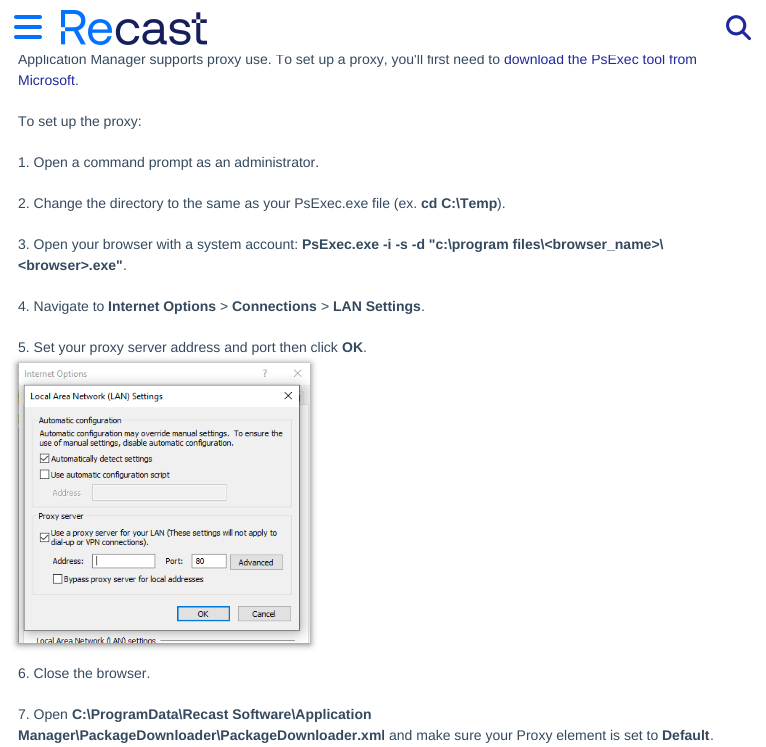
#include <cairo/cairo.h>
#include <math.h>
#include <stddef.h>


static void rounded_rect(cairo_t *cr, double x, double y, double w, double h, double r) {
  cairo_new_sub_path(cr);
  cairo_arc(cr, x + w - r, y + h - r, r, 0, M_PI / 2);
  cairo_arc(cr, x + r, y + h - r, r, M_PI / 2, M_PI);
  cairo_arc(cr, x + r, y + r, r, M_PI, 1.5 * M_PI);
  cairo_arc(cr, x + w - r, y + r, r, 1.5 * M_PI, 2 * M_PI);
  cairo_close_path(cr);
}

static void draw_shadow(cairo_t *cr, double x, double y, double w, double h, double r, double blur, double alpha) {
  cairo_push_group_with_content(cr, CAIRO_CONTENT_ALPHA);
  cairo_set_operator(cr, CAIRO_OPERATOR_SOURCE);
  for (int i = 15; i >= -15 && fmin(w, h) + blur * i / 3 > 0; i -= 2) {
    double e = blur * i / 6;
    cairo_set_source_rgba(cr, 0, 0, 0, alpha * erfc((i - 1) / 8.5) / 2);
    rounded_rect(cr, x - e, y - e, w + 2 * e, h + 2 * e, fmax(0, fmin(r + e + blur * .6, fmin(w, h) / 2 + e)));
    cairo_fill(cr);
  }
  cairo_pattern_t *soft = cairo_pop_group(cr);
  cairo_mask(cr, soft);
  cairo_pattern_destroy(soft);
}

static void draw_image(cairo_t *cr, const char *path, double x, double y, double w, double h) {
  cairo_surface_t *image = cairo_image_surface_create_from_png(path);
  cairo_save(cr);
  cairo_set_source_surface(cr, image, x, y);
  cairo_rectangle(cr, x, y, w, h);
  cairo_fill(cr);
  cairo_restore(cr);
  cairo_surface_destroy(image);
}

static void draw(cairo_t *cr) {
  cairo_set_source_rgb(cr, 1, 1, 1);
  cairo_paint(cr);
  draw_image(cr, "images/1.png", 14, 15, 28, 24);
  draw_image(cr, "images/2.png", 61, 10, 146, 35);
  draw_image(cr, "images/3.png", 726, 15, 25, 26);
  cairo_set_source_rgb(cr, 0, 0, 0);
  draw_shadow(cr, 18, 364, 292, 280, 0, 3.5, 0.6);
  draw_image(cr, "images/4.png", 18, 363, 292, 280);
  cairo_select_font_face(cr, "Liberation Sans", CAIRO_FONT_SLANT_NORMAL, CAIRO_FONT_WEIGHT_NORMAL);
  cairo_set_font_size(cr, 14);
  cairo_set_source_rgb(cr, 52 / 255.0, 73 / 255.0, 94 / 255.0);
  cairo_move_to(cr, 18, 64);
  cairo_show_text(cr, "Application Manager supports proxy use. To set up a proxy, you'll first need to");
  cairo_set_source_rgb(cr, 31 / 255.0, 40 / 255.0, 156 / 255.0);
  cairo_move_to(cr, 504, 64);
  cairo_show_text(cr, "download the PsExec tool from");
  cairo_set_source_rgb(cr, 1, 1, 1);
  cairo_rectangle(cr, 21, 53, 652, 2);
  cairo_fill(cr);
  cairo_set_source_rgb(cr, 31 / 255.0, 40 / 255.0, 156 / 255.0);
  cairo_move_to(cr, 18, 85);
  cairo_show_text(cr, "Microsoft");
  cairo_set_source_rgb(cr, 52 / 255.0, 73 / 255.0, 94 / 255.0);
  cairo_move_to(cr, 75, 85);
  cairo_show_text(cr, ".");
  cairo_move_to(cr, 18, 126);
  cairo_show_text(cr, "To set up the proxy:");
  cairo_move_to(cr, 18, 167);
  cairo_show_text(cr, "1. Open a command prompt as an administrator.");
  cairo_move_to(cr, 18, 208);
  cairo_show_text(cr, "2. Change the directory to the same as your PsExec.exe file (ex.");
  cairo_select_font_face(cr, "Liberation Sans", CAIRO_FONT_SLANT_NORMAL, CAIRO_FONT_WEIGHT_BOLD);
  cairo_move_to(cr, 421, 208);
  cairo_show_text(cr, "cd C:\\Temp");
  cairo_select_font_face(cr, "Liberation Sans", CAIRO_FONT_SLANT_NORMAL, CAIRO_FONT_WEIGHT_NORMAL);
  cairo_move_to(cr, 497, 208);
  cairo_show_text(cr, ").");
  cairo_move_to(cr, 18, 249);
  cairo_show_text(cr, "3. Open your browser with a system account:");
  cairo_select_font_face(cr, "Liberation Sans", CAIRO_FONT_SLANT_NORMAL, CAIRO_FONT_WEIGHT_BOLD);
  cairo_move_to(cr, 302, 249);
  cairo_show_text(cr, "PsExec.exe -i -s -d \"c:\\program files\\<browser_name>\\");
  cairo_move_to(cr, 18, 270);
  cairo_show_text(cr, "<browser>.exe\"");
  cairo_select_font_face(cr, "Liberation Sans", CAIRO_FONT_SLANT_NORMAL, CAIRO_FONT_WEIGHT_NORMAL);
  cairo_move_to(cr, 123, 270);
  cairo_show_text(cr, ".");
  cairo_move_to(cr, 18, 311);
  cairo_show_text(cr, "4. Navigate to");
  cairo_select_font_face(cr, "Liberation Sans", CAIRO_FONT_SLANT_NORMAL, CAIRO_FONT_WEIGHT_BOLD);
  cairo_move_to(cr, 108, 311);
  cairo_show_text(cr, "Internet Options");
  cairo_select_font_face(cr, "Liberation Sans", CAIRO_FONT_SLANT_NORMAL, CAIRO_FONT_WEIGHT_NORMAL);
  cairo_move_to(cr, 220, 311);
  cairo_show_text(cr, ">");
  cairo_select_font_face(cr, "Liberation Sans", CAIRO_FONT_SLANT_NORMAL, CAIRO_FONT_WEIGHT_BOLD);
  cairo_move_to(cr, 232, 311);
  cairo_show_text(cr, "Connections");
  cairo_select_font_face(cr, "Liberation Sans", CAIRO_FONT_SLANT_NORMAL, CAIRO_FONT_WEIGHT_NORMAL);
  cairo_move_to(cr, 321, 311);
  cairo_show_text(cr, ">");
  cairo_select_font_face(cr, "Liberation Sans", CAIRO_FONT_SLANT_NORMAL, CAIRO_FONT_WEIGHT_BOLD);
  cairo_move_to(cr, 333, 311);
  cairo_show_text(cr, "LAN Settings");
  cairo_select_font_face(cr, "Liberation Sans", CAIRO_FONT_SLANT_NORMAL, CAIRO_FONT_WEIGHT_NORMAL);
  cairo_move_to(cr, 421, 311);
  cairo_show_text(cr, ".");
  cairo_move_to(cr, 18, 352);
  cairo_show_text(cr, "5. Set your proxy server address and port then click");
  cairo_select_font_face(cr, "Liberation Sans", CAIRO_FONT_SLANT_NORMAL, CAIRO_FONT_WEIGHT_BOLD);
  cairo_move_to(cr, 342, 352);
  cairo_show_text(cr, "OK");
  cairo_select_font_face(cr, "Liberation Sans", CAIRO_FONT_SLANT_NORMAL, CAIRO_FONT_WEIGHT_NORMAL);
  cairo_move_to(cr, 363, 352);
  cairo_show_text(cr, ".");
  cairo_move_to(cr, 18, 678);
  cairo_show_text(cr, "6. Close the browser.");
  cairo_move_to(cr, 18, 719);
  cairo_show_text(cr, "7. Open");
  cairo_select_font_face(cr, "Liberation Sans", CAIRO_FONT_SLANT_NORMAL, CAIRO_FONT_WEIGHT_BOLD);
  cairo_move_to(cr, 72, 719);
  cairo_show_text(cr, "C:\\ProgramData\\Recast Software\\Application");
  cairo_move_to(cr, 18, 740);
  cairo_show_text(cr, "Manager\\PackageDownloader\\PackageDownloader.xml");
  cairo_select_font_face(cr, "Liberation Sans", CAIRO_FONT_SLANT_NORMAL, CAIRO_FONT_WEIGHT_NORMAL);
  cairo_move_to(cr, 389, 740);
  cairo_show_text(cr, "and make sure your Proxy element is set to");
  cairo_select_font_face(cr, "Liberation Sans", CAIRO_FONT_SLANT_NORMAL, CAIRO_FONT_WEIGHT_BOLD);
  cairo_move_to(cr, 662, 740);
  cairo_show_text(cr, "Default");
  cairo_select_font_face(cr, "Liberation Sans", CAIRO_FONT_SLANT_NORMAL, CAIRO_FONT_WEIGHT_NORMAL);
  cairo_move_to(cr, 710, 740);
  cairo_show_text(cr, ".");
}

int main(void) {
  cairo_surface_t *surface = cairo_image_surface_create(CAIRO_FORMAT_RGB24, 766, 747);
  cairo_t *cr = cairo_create(surface);
  cairo_font_options_t *options = cairo_font_options_create();
  cairo_font_options_set_hint_metrics(options, CAIRO_HINT_METRICS_OFF);
  cairo_font_options_set_hint_style(options, CAIRO_HINT_STYLE_NONE);
  cairo_set_font_options(cr, options);
  cairo_set_miter_limit(cr, 4);
  draw(cr);
  cairo_surface_write_to_png(surface, "out.png");
  cairo_font_options_destroy(options);
  cairo_destroy(cr);
  cairo_surface_destroy(surface);
  return 0;
}
